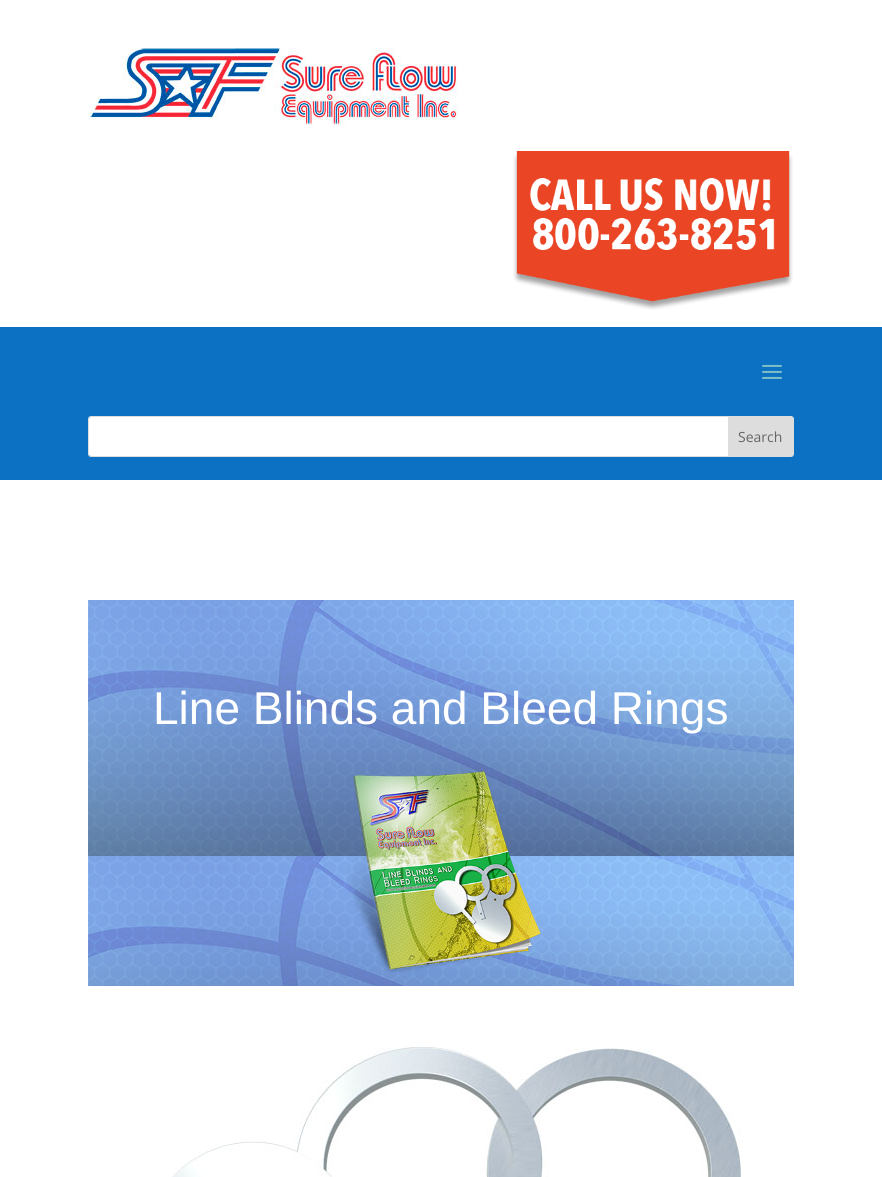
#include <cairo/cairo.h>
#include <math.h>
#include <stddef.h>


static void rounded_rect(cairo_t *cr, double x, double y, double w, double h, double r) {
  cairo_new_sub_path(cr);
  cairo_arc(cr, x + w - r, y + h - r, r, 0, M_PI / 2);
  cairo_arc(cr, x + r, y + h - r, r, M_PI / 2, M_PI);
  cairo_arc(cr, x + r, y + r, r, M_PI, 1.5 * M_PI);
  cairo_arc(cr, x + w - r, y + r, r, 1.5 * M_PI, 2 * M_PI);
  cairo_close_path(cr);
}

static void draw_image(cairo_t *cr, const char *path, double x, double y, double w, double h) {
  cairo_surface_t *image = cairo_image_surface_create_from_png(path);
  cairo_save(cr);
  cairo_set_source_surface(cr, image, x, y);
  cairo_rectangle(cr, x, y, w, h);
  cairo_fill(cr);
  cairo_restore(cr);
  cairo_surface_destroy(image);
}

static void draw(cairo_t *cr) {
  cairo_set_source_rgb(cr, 1, 1, 1);
  cairo_paint(cr);
  draw_image(cr, "images/1.png", 90, 48, 368, 78);
  draw_image(cr, "images/2.png", 513, 151, 280, 159);
  cairo_set_source_rgb(cr, 12 / 255.0, 113 / 255.0, 195 / 255.0);
  cairo_rectangle(cr, 0, 327, 882, 153);
  cairo_fill(cr);
  draw_image(cr, "images/3.png", 762, 364, 20, 15);
  rounded_rect(cr, 88.5, 416.5, 705, 40, 2.5);
  cairo_set_source_rgb(cr, 221 / 255.0, 221 / 255.0, 221 / 255.0);
  cairo_set_line_width(cr, 1);
  cairo_stroke(cr);
  cairo_set_source_rgb(cr, 1, 1, 1);
  rounded_rect(cr, 89, 417, 704, 39, 2);
  cairo_fill(cr);
  cairo_set_source_rgb(cr, 221 / 255.0, 221 / 255.0, 221 / 255.0);
  cairo_new_path(cr);
  cairo_move_to(cr, 728, 417);
  cairo_line_to(cr, 791, 417);
  cairo_curve_to(cr, 792, 417, 793, 418, 793, 419);
  cairo_line_to(cr, 793, 454);
  cairo_curve_to(cr, 793, 455, 792, 456, 791, 456);
  cairo_line_to(cr, 728, 456);
  cairo_close_path(cr);
  cairo_fill(cr);
  draw_image(cr, "images/4.png", 88, 600, 706, 386);
  draw_image(cr, "images/5.png", 347, 771, 194, 202);
  draw_image(cr, "images/6.png", 172, 1047, 569, 130);
  cairo_select_font_face(cr, "Open Sans", CAIRO_FONT_SLANT_NORMAL, CAIRO_FONT_WEIGHT_NORMAL);
  cairo_set_font_size(cr, 14);
  cairo_set_source_rgb(cr, 102 / 255.0, 102 / 255.0, 102 / 255.0);
  cairo_move_to(cr, 738, 442);
  cairo_show_text(cr, "Search");
  cairo_select_font_face(cr, "Liberation Sans", CAIRO_FONT_SLANT_NORMAL, CAIRO_FONT_WEIGHT_NORMAL);
  cairo_set_font_size(cr, 46);
  cairo_set_source_rgb(cr, 1, 1, 1);
  cairo_move_to(cr, 153, 724);
  cairo_show_text(cr, "Line Blinds and Bleed Rings");
}

int main(void) {
  cairo_surface_t *surface = cairo_image_surface_create(CAIRO_FORMAT_RGB24, 882, 1177);
  cairo_t *cr = cairo_create(surface);
  cairo_font_options_t *options = cairo_font_options_create();
  cairo_font_options_set_hint_metrics(options, CAIRO_HINT_METRICS_OFF);
  cairo_font_options_set_hint_style(options, CAIRO_HINT_STYLE_NONE);
  cairo_set_font_options(cr, options);
  cairo_set_miter_limit(cr, 4);
  draw(cr);
  cairo_surface_write_to_png(surface, "out.png");
  cairo_font_options_destroy(options);
  cairo_destroy(cr);
  cairo_surface_destroy(surface);
  return 0;
}
